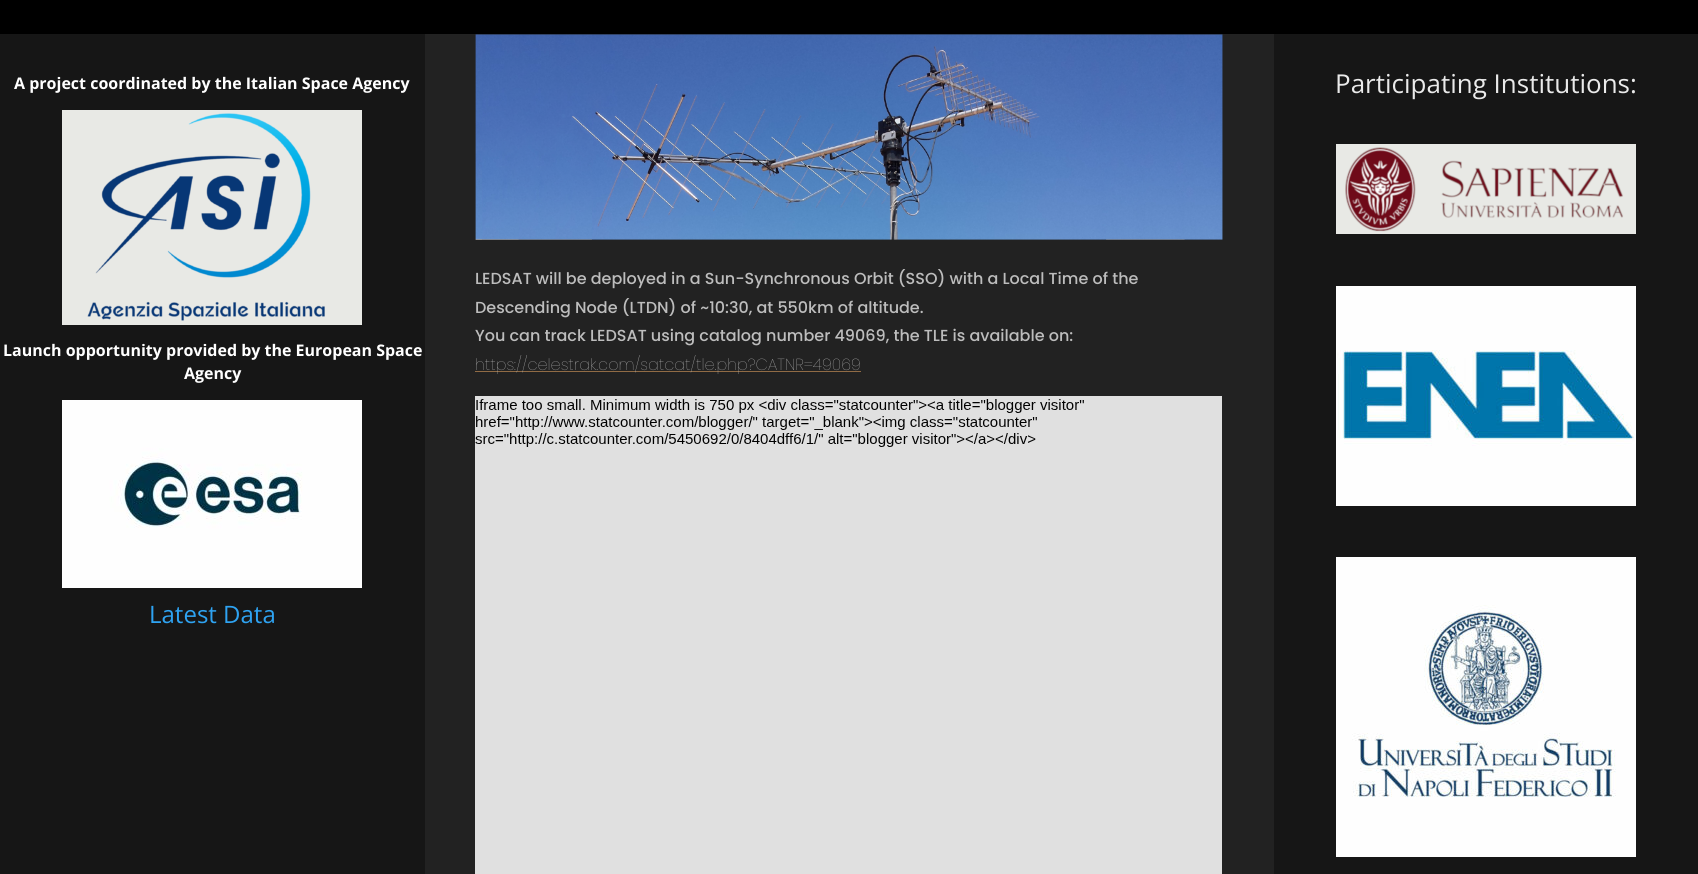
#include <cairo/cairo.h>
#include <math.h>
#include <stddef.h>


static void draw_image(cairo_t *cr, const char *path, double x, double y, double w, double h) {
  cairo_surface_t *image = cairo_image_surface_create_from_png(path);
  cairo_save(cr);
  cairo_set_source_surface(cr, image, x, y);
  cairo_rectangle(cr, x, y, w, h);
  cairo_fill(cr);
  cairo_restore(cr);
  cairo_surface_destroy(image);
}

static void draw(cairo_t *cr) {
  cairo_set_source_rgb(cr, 0, 0, 0);
  cairo_paint(cr);
  cairo_set_source_rgb(cr, 22 / 255.0, 22 / 255.0, 22 / 255.0);
  cairo_rectangle(cr, 0, 34, 425, 840);
  cairo_fill(cr);
  draw_image(cr, "images/1.png", 62, 110, 300, 215);
  draw_image(cr, "images/2.png", 62, 400, 300, 188);
  cairo_set_source_rgb(cr, 34 / 255.0, 34 / 255.0, 34 / 255.0);
  cairo_rectangle(cr, 425, 34, 849, 840);
  cairo_fill(cr);
  draw_image(cr, "images/3.png", 475, 34, 748, 206);
  cairo_set_source_rgb(cr, 144 / 255.0, 107 / 255.0, 69 / 255.0);
  cairo_rectangle(cr, 475, 371, 386, 1);
  cairo_fill(cr);
  draw_image(cr, "images/4.png", 475, 396, 747, 478);
  cairo_set_source_rgb(cr, 22 / 255.0, 22 / 255.0, 22 / 255.0);
  cairo_rectangle(cr, 1274, 34, 424, 840);
  cairo_fill(cr);
  draw_image(cr, "images/5.png", 1336, 144, 300, 90);
  draw_image(cr, "images/6.png", 1336, 286, 300, 220);
  draw_image(cr, "images/7.png", 1336, 557, 300, 300);
  cairo_select_font_face(cr, "Open Sans", CAIRO_FONT_SLANT_NORMAL, CAIRO_FONT_WEIGHT_BOLD);
  cairo_set_font_size(cr, 16);
  cairo_set_source_rgb(cr, 1, 1, 1);
  cairo_move_to(cr, 14, 89);
  cairo_show_text(cr, "A project coordinated by the Italian Space Agency");
  cairo_move_to(cr, 3, 356);
  cairo_show_text(cr, "Launch opportunity provided by the European Space");
  cairo_move_to(cr, 184, 379);
  cairo_show_text(cr, "Agency");
  cairo_select_font_face(cr, "Open Sans", CAIRO_FONT_SLANT_NORMAL, CAIRO_FONT_WEIGHT_NORMAL);
  cairo_set_font_size(cr, 24);
  cairo_set_source_rgb(cr, 46 / 255.0, 163 / 255.0, 242 / 255.0);
  cairo_move_to(cr, 149, 623);
  cairo_show_text(cr, "Latest Data");
  cairo_select_font_face(cr, "Poppins Medium", CAIRO_FONT_SLANT_NORMAL, CAIRO_FONT_WEIGHT_NORMAL);
  cairo_set_font_size(cr, 16);
  cairo_set_source_rgb(cr, 189 / 255.0, 189 / 255.0, 189 / 255.0);
  cairo_move_to(cr, 475, 284);
  cairo_show_text(cr, "LEDSAT will be deployed in a Sun-Synchronous Orbit (SSO) with a Local Time of the");
  cairo_move_to(cr, 475, 313);
  cairo_show_text(cr, "Descending Node (LTDN) of ~10:30, at 550km of altitude.");
  cairo_move_to(cr, 475, 341);
  cairo_show_text(cr, "You can track LEDSAT using catalog number 49069, the TLE is available on:");
  cairo_select_font_face(cr, "Poppins Thin", CAIRO_FONT_SLANT_NORMAL, CAIRO_FONT_WEIGHT_NORMAL);
  cairo_move_to(cr, 475, 370);
  cairo_show_text(cr, "https://celestrak.com/satcat/tle.php?CATNR=49069");
  cairo_select_font_face(cr, "Open Sans", CAIRO_FONT_SLANT_NORMAL, CAIRO_FONT_WEIGHT_NORMAL);
  cairo_set_font_size(cr, 26);
  cairo_set_source_rgb(cr, 234 / 255.0, 234 / 255.0, 234 / 255.0);
  cairo_move_to(cr, 1335, 93);
  cairo_show_text(cr, "Participating Institutions:");
}

int main(void) {
  cairo_surface_t *surface = cairo_image_surface_create(CAIRO_FORMAT_RGB24, 1698, 874);
  cairo_t *cr = cairo_create(surface);
  cairo_font_options_t *options = cairo_font_options_create();
  cairo_font_options_set_hint_metrics(options, CAIRO_HINT_METRICS_OFF);
  cairo_font_options_set_hint_style(options, CAIRO_HINT_STYLE_NONE);
  cairo_set_font_options(cr, options);
  cairo_set_miter_limit(cr, 4);
  draw(cr);
  cairo_surface_write_to_png(surface, "out.png");
  cairo_font_options_destroy(options);
  cairo_destroy(cr);
  cairo_surface_destroy(surface);
  return 0;
}
